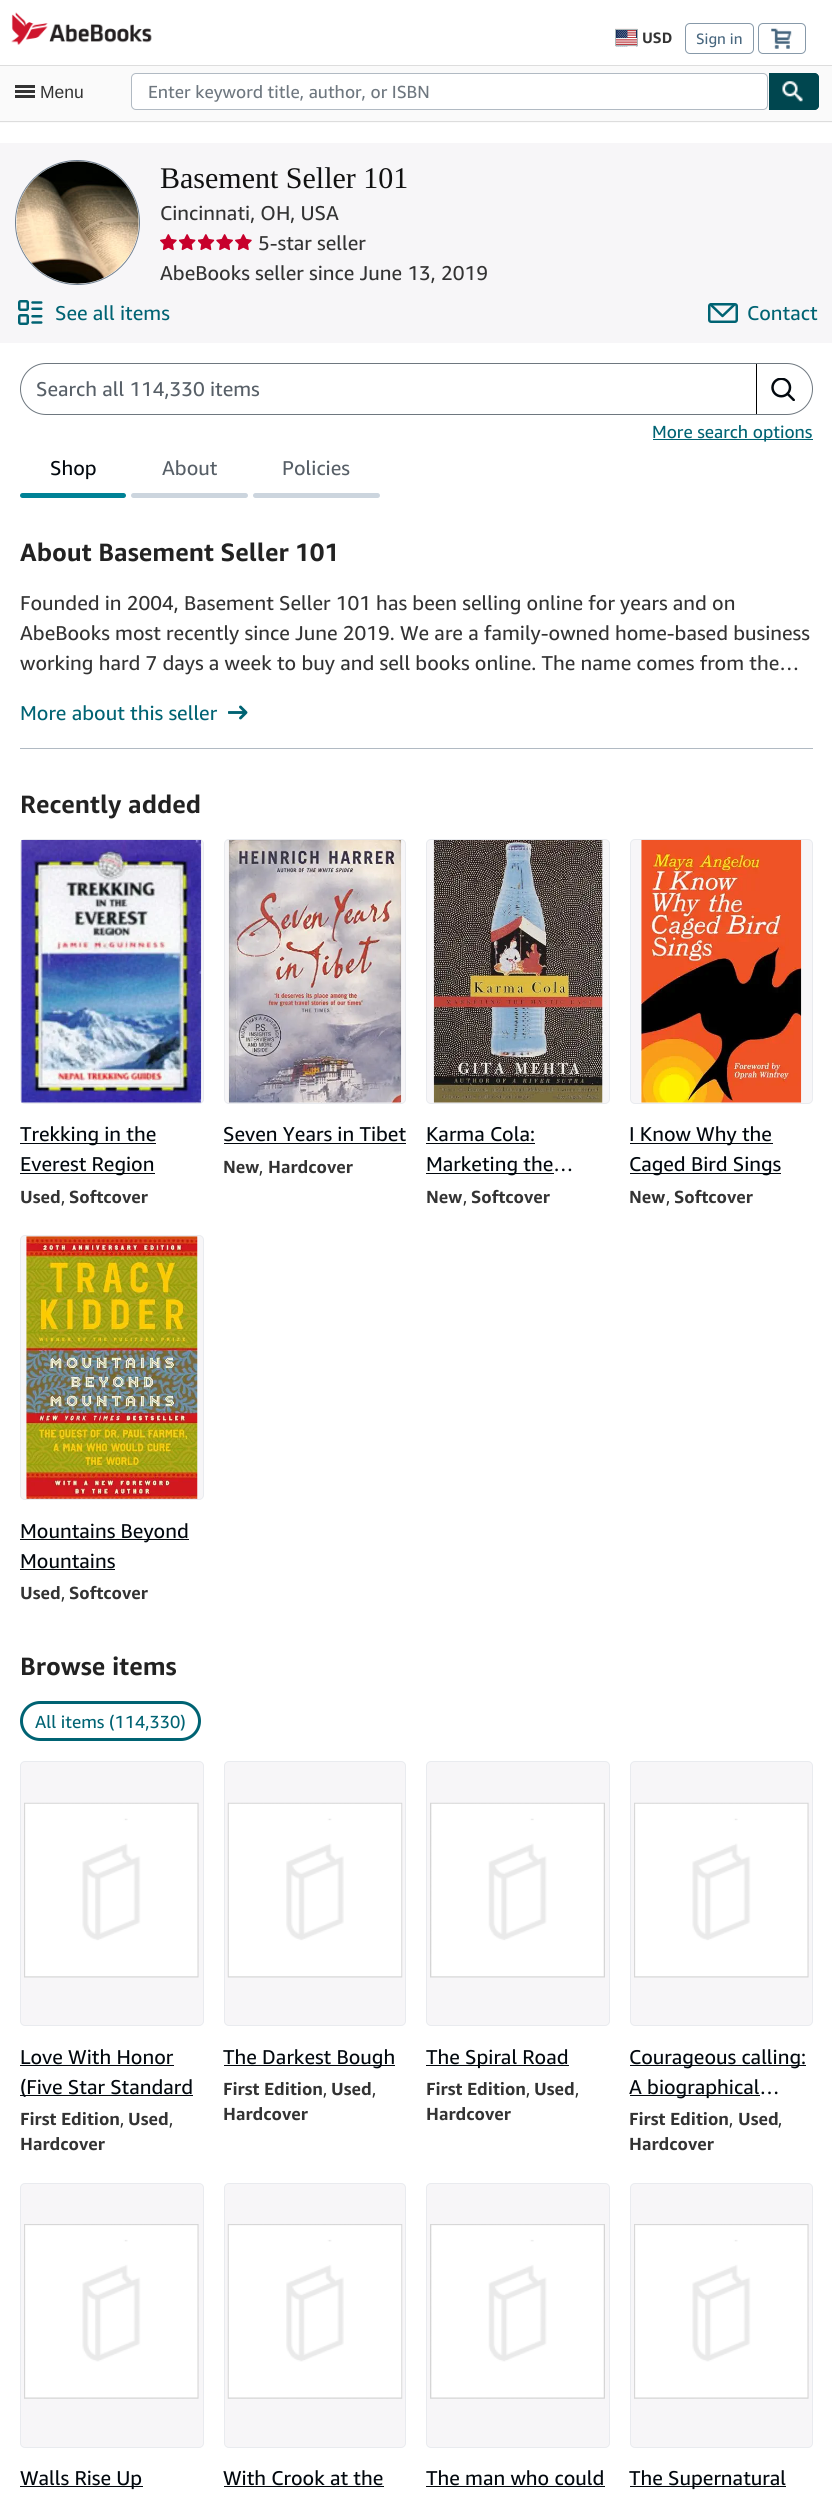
#include <cairo/cairo.h>
#include <math.h>
#include <stddef.h>


static void rounded_rect(cairo_t *cr, double x, double y, double w, double h, double r) {
  cairo_new_sub_path(cr);
  cairo_arc(cr, x + w - r, y + h - r, r, 0, M_PI / 2);
  cairo_arc(cr, x + r, y + h - r, r, M_PI / 2, M_PI);
  cairo_arc(cr, x + r, y + r, r, M_PI, 1.5 * M_PI);
  cairo_arc(cr, x + w - r, y + r, r, 1.5 * M_PI, 2 * M_PI);
  cairo_close_path(cr);
}

static void draw_image(cairo_t *cr, const char *path, double x, double y, double w, double h) {
  cairo_surface_t *image = cairo_image_surface_create_from_png(path);
  cairo_save(cr);
  cairo_set_source_surface(cr, image, x, y);
  cairo_rectangle(cr, x, y, w, h);
  cairo_fill(cr);
  cairo_restore(cr);
  cairo_surface_destroy(image);
}

static void draw(cairo_t *cr) {
  cairo_set_source_rgb(cr, 1, 1, 1);
  cairo_paint(cr);
  draw_image(cr, "images/1.png", 11, 12, 141, 33);
  draw_image(cr, "images/2.png", 615, 28, 23, 19);
  cairo_rectangle(cr, 615.5, 29.5, 22, 16);
  cairo_set_source_rgb(cr, 170 / 255.0, 183 / 255.0, 184 / 255.0);
  cairo_set_line_width(cr, 1);
  cairo_stroke(cr);
  rounded_rect(cr, 685.5, 23.5, 68, 30, 4.5);
  cairo_set_source_rgb(cr, 135 / 255.0, 153 / 255.0, 169 / 255.0);
  cairo_stroke(cr);
  rounded_rect(cr, 758.5, 23.5, 47, 30, 4.5);
  cairo_stroke(cr);
  draw_image(cr, "images/3.png", 771, 28, 21, 21);
  cairo_set_source_rgb(cr, 250 / 255.0, 250 / 255.0, 250 / 255.0);
  cairo_rectangle(cr, 0, 66, 832, 57);
  cairo_fill(cr);
  cairo_set_source_rgb(cr, 221 / 255.0, 221 / 255.0, 221 / 255.0);
  cairo_rectangle(cr, 0, 65, 832, 1);
  cairo_fill(cr);
  cairo_rectangle(cr, 0, 121, 832, 1);
  cairo_fill(cr);
  cairo_set_source_rgb(cr, 51 / 255.0, 51 / 255.0, 51 / 255.0);
  cairo_rectangle(cr, 15, 85, 20, 3);
  cairo_fill(cr);
  cairo_rectangle(cr, 15, 90, 20, 3);
  cairo_fill(cr);
  cairo_rectangle(cr, 15, 95, 20, 3);
  cairo_fill(cr);
  cairo_set_source_rgb(cr, 1, 1, 1);
  rounded_rect(cr, 131.5, 73.5, 636, 36, 4.5);
  cairo_fill_preserve(cr);
  cairo_set_source_rgb(cr, 177 / 255.0, 186 / 255.0, 195 / 255.0);
  cairo_stroke(cr);
  cairo_set_source_rgb(cr, 0, 70 / 255.0, 79 / 255.0);
  cairo_new_path(cr);
  cairo_move_to(cr, 769, 73);
  cairo_line_to(cr, 814, 73);
  cairo_curve_to(cr, 817, 73, 819, 75, 819, 78);
  cairo_line_to(cr, 819, 105);
  cairo_curve_to(cr, 819, 108, 817, 110, 814, 110);
  cairo_line_to(cr, 769, 110);
  cairo_close_path(cr);
  cairo_fill(cr);
  draw_image(cr, "images/4.png", 782, 81, 21, 21);
  cairo_new_path(cr);
  cairo_move_to(cr, 769.5, 73.5);
  cairo_line_to(cr, 814, 73.5);
  cairo_curve_to(cr, 816.5, 73.5, 818.5, 75.5, 818.5, 78);
  cairo_line_to(cr, 818.5, 105);
  cairo_curve_to(cr, 818.5, 107.5, 816.5, 109.5, 814, 109.5);
  cairo_line_to(cr, 769.5, 109.5);
  cairo_close_path(cr);
  cairo_stroke(cr);
  cairo_set_source_rgb(cr, 247 / 255.0, 246 / 255.0, 248 / 255.0);
  cairo_rectangle(cr, 0, 143, 832, 200);
  cairo_fill(cr);
  cairo_set_source_rgb(cr, 1, 1, 1);
  cairo_arc(cr, 77.5, 222.5, 62, 0, 2 * M_PI);
  cairo_fill_preserve(cr);
  cairo_set_source_rgb(cr, 112 / 255.0, 128 / 255.0, 144 / 255.0);
  cairo_stroke(cr);
  draw_image(cr, "images/5.png", 16, 161, 123, 123);
  draw_image(cr, "images/6.png", 160, 234, 17, 17);
  draw_image(cr, "images/7.png", 179, 234, 17, 17);
  draw_image(cr, "images/8.png", 198, 234, 17, 17);
  draw_image(cr, "images/9.png", 216, 234, 17, 17);
  draw_image(cr, "images/6.png", 235, 234, 17, 17);
  draw_image(cr, "images/10.png", 18, 300, 25, 25);
  rounded_rect(cr, 709.25, 304.25, 27.5, 17.5, 1.75);
  cairo_set_source_rgb(cr, 0, 99 / 255.0, 115 / 255.0);
  cairo_set_line_width(cr, 2.5);
  cairo_stroke(cr);
  cairo_new_path(cr);
  cairo_move_to(cr, 710, 304);
  cairo_line_to(cr, 722.5, 316);
  cairo_line_to(cr, 735, 304);
  cairo_set_line_join(cr, CAIRO_LINE_JOIN_ROUND);
  cairo_stroke(cr);
  rounded_rect(cr, 20.5, 363.5, 792, 51, 25.5);
  cairo_set_source_rgb(cr, 110 / 255.0, 119 / 255.0, 127 / 255.0);
  cairo_set_line_width(cr, 1);
  cairo_set_line_join(cr, CAIRO_LINE_JOIN_MITER);
  cairo_stroke(cr);
  cairo_set_source_rgb(cr, 0, 0, 0);
  cairo_rectangle(cr, 756, 364, 1, 50);
  cairo_fill(cr);
  draw_image(cr, "images/11.png", 771, 378, 24, 23);
  cairo_set_source_rgb(cr, 0, 99 / 255.0, 115 / 255.0);
  cairo_rectangle(cr, 653, 439, 160, 1);
  cairo_fill(cr);
  cairo_set_source_rgb(cr, 0, 130 / 255.0, 150 / 255.0);
  rounded_rect(cr, 20, 493, 106, 5, 2.5);
  cairo_fill(cr);
  cairo_set_source_rgb(cr, 204 / 255.0, 213 / 255.0, 222 / 255.0);
  rounded_rect(cr, 131, 493, 117, 5, 2.5);
  cairo_fill(cr);
  rounded_rect(cr, 253, 493, 127, 5, 2.5);
  cairo_fill(cr);
  cairo_save(cr);
  cairo_rectangle(cr, 228, 703, 20, 20);
  cairo_clip(cr);
  cairo_new_path(cr);
  cairo_move_to(cr, 240.5, 718);
  cairo_line_to(cr, 246, 712.5);
  cairo_line_to(cr, 240.5, 707);
  cairo_move_to(cr, 246, 712.5);
  cairo_line_to(cr, 229, 712.5);
  cairo_set_source_rgb(cr, 0, 99 / 255.0, 115 / 255.0);
  cairo_set_line_width(cr, 2.9);
  cairo_set_line_cap(cr, CAIRO_LINE_CAP_ROUND);
  cairo_set_line_join(cr, CAIRO_LINE_JOIN_ROUND);
  cairo_stroke(cr);
  cairo_restore(cr);
  cairo_set_source_rgb(cr, 177 / 255.0, 186 / 255.0, 195 / 255.0);
  cairo_rectangle(cr, 20, 748, 793, 1);
  cairo_fill(cr);
  cairo_set_source_rgb(cr, 247 / 255.0, 246 / 255.0, 248 / 255.0);
  rounded_rect(cr, 20.5, 839.5, 183, 264, 4.5);
  cairo_fill_preserve(cr);
  cairo_set_source_rgb(cr, 233 / 255.0, 235 / 255.0, 239 / 255.0);
  cairo_stroke(cr);
  draw_image(cr, "images/12.png", 21, 840, 181, 263);
  cairo_set_source_rgb(cr, 2 / 255.0, 8 / 255.0, 14 / 255.0);
  cairo_rectangle(cr, 20, 1143, 136, 1);
  cairo_fill(cr);
  cairo_rectangle(cr, 20, 1173, 135, 1);
  cairo_fill(cr);
  cairo_set_source_rgb(cr, 247 / 255.0, 246 / 255.0, 248 / 255.0);
  rounded_rect(cr, 224.5, 839.5, 181, 264, 4.5);
  cairo_fill_preserve(cr);
  cairo_set_source_rgb(cr, 233 / 255.0, 235 / 255.0, 239 / 255.0);
  cairo_stroke(cr);
  draw_image(cr, "images/13.png", 228, 840, 174, 263);
  cairo_set_source_rgb(cr, 2 / 255.0, 8 / 255.0, 14 / 255.0);
  cairo_rectangle(cr, 224, 1143, 182, 1);
  cairo_fill(cr);
  cairo_set_source_rgb(cr, 247 / 255.0, 246 / 255.0, 248 / 255.0);
  rounded_rect(cr, 426.5, 839.5, 183, 264, 4.5);
  cairo_fill_preserve(cr);
  cairo_set_source_rgb(cr, 233 / 255.0, 235 / 255.0, 239 / 255.0);
  cairo_stroke(cr);
  draw_image(cr, "images/14.png", 433, 840, 170, 263);
  cairo_set_source_rgb(cr, 2 / 255.0, 8 / 255.0, 14 / 255.0);
  cairo_rectangle(cr, 426, 1143, 109, 1);
  cairo_fill(cr);
  cairo_rectangle(cr, 426, 1173, 128, 1);
  cairo_fill(cr);
  cairo_set_source_rgb(cr, 247 / 255.0, 246 / 255.0, 248 / 255.0);
  rounded_rect(cr, 630.5, 839.5, 182, 264, 4.5);
  cairo_fill_preserve(cr);
  cairo_set_source_rgb(cr, 233 / 255.0, 235 / 255.0, 239 / 255.0);
  cairo_stroke(cr);
  draw_image(cr, "images/15.png", 641, 840, 161, 263);
  cairo_set_source_rgb(cr, 2 / 255.0, 8 / 255.0, 14 / 255.0);
  cairo_rectangle(cr, 630, 1143, 143, 1);
  cairo_fill(cr);
  cairo_rectangle(cr, 630, 1173, 151, 1);
  cairo_fill(cr);
  cairo_set_source_rgb(cr, 247 / 255.0, 246 / 255.0, 248 / 255.0);
  rounded_rect(cr, 20.5, 1235.5, 183, 264, 4.5);
  cairo_fill_preserve(cr);
  cairo_set_source_rgb(cr, 233 / 255.0, 235 / 255.0, 239 / 255.0);
  cairo_stroke(cr);
  draw_image(cr, "images/16.png", 26, 1236, 172, 263);
  cairo_set_source_rgb(cr, 2 / 255.0, 8 / 255.0, 14 / 255.0);
  cairo_rectangle(cr, 20, 1539, 169, 1);
  cairo_fill(cr);
  cairo_rectangle(cr, 20, 1569, 95, 1);
  cairo_fill(cr);
  rounded_rect(cr, 21.5, 1702.5, 178, 37, 18.5);
  cairo_set_source_rgb(cr, 0, 99 / 255.0, 115 / 255.0);
  cairo_set_line_width(cr, 3);
  cairo_stroke(cr);
  cairo_set_source_rgb(cr, 247 / 255.0, 246 / 255.0, 248 / 255.0);
  rounded_rect(cr, 20.5, 1761.5, 183, 264, 4.5);
  cairo_fill_preserve(cr);
  cairo_set_source_rgb(cr, 233 / 255.0, 235 / 255.0, 239 / 255.0);
  cairo_set_line_width(cr, 1);
  cairo_stroke(cr);
  draw_image(cr, "images/17.png", 24, 1802, 175, 176);
  cairo_set_source_rgb(cr, 2 / 255.0, 8 / 255.0, 14 / 255.0);
  cairo_rectangle(cr, 20, 2065, 154, 1);
  cairo_fill(cr);
  cairo_rectangle(cr, 20, 2095, 173, 1);
  cairo_fill(cr);
  cairo_set_source_rgb(cr, 247 / 255.0, 246 / 255.0, 248 / 255.0);
  rounded_rect(cr, 224.5, 1761.5, 181, 264, 4.5);
  cairo_fill_preserve(cr);
  cairo_set_source_rgb(cr, 233 / 255.0, 235 / 255.0, 239 / 255.0);
  cairo_stroke(cr);
  draw_image(cr, "images/18.png", 227, 1802, 176, 176);
  cairo_set_source_rgb(cr, 2 / 255.0, 8 / 255.0, 14 / 255.0);
  cairo_rectangle(cr, 224, 2065, 171, 1);
  cairo_fill(cr);
  cairo_set_source_rgb(cr, 247 / 255.0, 246 / 255.0, 248 / 255.0);
  rounded_rect(cr, 426.5, 1761.5, 183, 264, 4.5);
  cairo_fill_preserve(cr);
  cairo_set_source_rgb(cr, 233 / 255.0, 235 / 255.0, 239 / 255.0);
  cairo_stroke(cr);
  draw_image(cr, "images/19.png", 430, 1802, 175, 176);
  cairo_set_source_rgb(cr, 2 / 255.0, 8 / 255.0, 14 / 255.0);
  cairo_rectangle(cr, 426, 2065, 143, 1);
  cairo_fill(cr);
  cairo_set_source_rgb(cr, 247 / 255.0, 246 / 255.0, 248 / 255.0);
  rounded_rect(cr, 630.5, 1761.5, 182, 264, 4.5);
  cairo_fill_preserve(cr);
  cairo_set_source_rgb(cr, 233 / 255.0, 235 / 255.0, 239 / 255.0);
  cairo_stroke(cr);
  draw_image(cr, "images/17.png", 634, 1802, 175, 176);
  cairo_set_source_rgb(cr, 2 / 255.0, 8 / 255.0, 14 / 255.0);
  cairo_rectangle(cr, 630, 2065, 176, 1);
  cairo_fill(cr);
  cairo_rectangle(cr, 630, 2095, 130, 1);
  cairo_fill(cr);
  cairo_set_source_rgb(cr, 247 / 255.0, 246 / 255.0, 248 / 255.0);
  rounded_rect(cr, 20.5, 2183.5, 183, 264, 4.5);
  cairo_fill_preserve(cr);
  cairo_set_source_rgb(cr, 233 / 255.0, 235 / 255.0, 239 / 255.0);
  cairo_stroke(cr);
  draw_image(cr, "images/20.png", 24, 2224, 175, 175);
  cairo_set_source_rgb(cr, 2 / 255.0, 8 / 255.0, 14 / 255.0);
  cairo_rectangle(cr, 20, 2486, 123, 1);
  cairo_fill(cr);
  cairo_set_source_rgb(cr, 247 / 255.0, 246 / 255.0, 248 / 255.0);
  rounded_rect(cr, 224.5, 2183.5, 181, 264, 4.5);
  cairo_fill_preserve(cr);
  cairo_set_source_rgb(cr, 233 / 255.0, 235 / 255.0, 239 / 255.0);
  cairo_stroke(cr);
  draw_image(cr, "images/21.png", 227, 2224, 176, 175);
  cairo_set_source_rgb(cr, 2 / 255.0, 8 / 255.0, 14 / 255.0);
  cairo_rectangle(cr, 224, 2486, 160, 1);
  cairo_fill(cr);
  cairo_set_source_rgb(cr, 247 / 255.0, 246 / 255.0, 248 / 255.0);
  rounded_rect(cr, 426.5, 2183.5, 183, 264, 4.5);
  cairo_fill_preserve(cr);
  cairo_set_source_rgb(cr, 233 / 255.0, 235 / 255.0, 239 / 255.0);
  cairo_stroke(cr);
  draw_image(cr, "images/22.png", 430, 2224, 175, 175);
  cairo_set_source_rgb(cr, 2 / 255.0, 8 / 255.0, 14 / 255.0);
  cairo_rectangle(cr, 426, 2486, 179, 1);
  cairo_fill(cr);
  cairo_set_source_rgb(cr, 247 / 255.0, 246 / 255.0, 248 / 255.0);
  rounded_rect(cr, 630.5, 2183.5, 182, 264, 4.5);
  cairo_fill_preserve(cr);
  cairo_set_source_rgb(cr, 233 / 255.0, 235 / 255.0, 239 / 255.0);
  cairo_stroke(cr);
  draw_image(cr, "images/20.png", 634, 2224, 175, 175);
  cairo_set_source_rgb(cr, 2 / 255.0, 8 / 255.0, 14 / 255.0);
  cairo_rectangle(cr, 630, 2486, 156, 1);
  cairo_fill(cr);
  cairo_select_font_face(cr, "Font", CAIRO_FONT_SLANT_NORMAL, CAIRO_FONT_WEIGHT_BOLD);
  cairo_set_font_size(cr, 15);
  cairo_set_source_rgb(cr, 51 / 255.0, 51 / 255.0, 51 / 255.0);
  cairo_move_to(cr, 642, 43);
  cairo_show_text(cr, "USD");
  cairo_select_font_face(cr, "Font", CAIRO_FONT_SLANT_NORMAL, CAIRO_FONT_WEIGHT_NORMAL);
  cairo_set_source_rgb(cr, 71 / 255.0, 102 / 255.0, 126 / 255.0);
  cairo_move_to(cr, 696, 44);
  cairo_show_text(cr, "Sign in");
  cairo_select_font_face(cr, "Liberation Sans", CAIRO_FONT_SLANT_NORMAL, CAIRO_FONT_WEIGHT_NORMAL);
  cairo_set_font_size(cr, 17.5);
  cairo_set_source_rgb(cr, 51 / 255.0, 51 / 255.0, 51 / 255.0);
  cairo_move_to(cr, 40, 98);
  cairo_show_text(cr, "Menu");
  cairo_select_font_face(cr, "Font", CAIRO_FONT_SLANT_NORMAL, CAIRO_FONT_WEIGHT_NORMAL);
  cairo_set_source_rgb(cr, 110 / 255.0, 119 / 255.0, 127 / 255.0);
  cairo_move_to(cr, 148, 98);
  cairo_show_text(cr, "Enter keyword title, author, or ISBN");
  cairo_select_font_face(cr, "Liberation Serif", CAIRO_FONT_SLANT_NORMAL, CAIRO_FONT_WEIGHT_NORMAL);
  cairo_set_font_size(cr, 30);
  cairo_set_source_rgb(cr, 17 / 255.0, 17 / 255.0, 17 / 255.0);
  cairo_move_to(cr, 160, 188);
  cairo_show_text(cr, "Basement Seller 101");
  cairo_select_font_face(cr, "Font", CAIRO_FONT_SLANT_NORMAL, CAIRO_FONT_WEIGHT_NORMAL);
  cairo_set_font_size(cr, 20);
  cairo_set_source_rgb(cr, 51 / 255.0, 51 / 255.0, 51 / 255.0);
  cairo_move_to(cr, 160, 220);
  cairo_show_text(cr, "Cincinnati, OH, USA");
  cairo_move_to(cr, 258, 250);
  cairo_show_text(cr, "5-star seller");
  cairo_move_to(cr, 160, 280);
  cairo_show_text(cr, "AbeBooks seller since June 13, 2019");
  cairo_set_source_rgb(cr, 0, 99 / 255.0, 115 / 255.0);
  cairo_move_to(cr, 55, 320);
  cairo_show_text(cr, "See all items");
  cairo_move_to(cr, 747, 320);
  cairo_show_text(cr, "Contact");
  cairo_set_source_rgb(cr, 87 / 255.0, 95 / 255.0, 103 / 255.0);
  cairo_move_to(cr, 36, 396);
  cairo_show_text(cr, "Search all 114,330 items");
  cairo_set_font_size(cr, 17.5);
  cairo_set_source_rgb(cr, 0, 99 / 255.0, 115 / 255.0);
  cairo_move_to(cr, 652, 438);
  cairo_show_text(cr, "More search options");
  cairo_set_font_size(cr, 20);
  cairo_set_source_rgb(cr, 2 / 255.0, 8 / 255.0, 14 / 255.0);
  cairo_move_to(cr, 50, 475);
  cairo_show_text(cr, "Shop");
  cairo_set_source_rgb(cr, 87 / 255.0, 95 / 255.0, 103 / 255.0);
  cairo_move_to(cr, 162, 475);
  cairo_show_text(cr, "About");
  cairo_move_to(cr, 282, 475);
  cairo_show_text(cr, "Policies");
  cairo_select_font_face(cr, "Font", CAIRO_FONT_SLANT_NORMAL, CAIRO_FONT_WEIGHT_BOLD);
  cairo_set_font_size(cr, 25);
  cairo_set_source_rgb(cr, 34 / 255.0, 34 / 255.0, 34 / 255.0);
  cairo_move_to(cr, 20, 561);
  cairo_show_text(cr, "About Basement Seller 101");
  cairo_select_font_face(cr, "Font", CAIRO_FONT_SLANT_NORMAL, CAIRO_FONT_WEIGHT_NORMAL);
  cairo_set_font_size(cr, 20);
  cairo_set_source_rgb(cr, 51 / 255.0, 51 / 255.0, 51 / 255.0);
  cairo_move_to(cr, 20, 610);
  cairo_show_text(cr, "Founded in 2004, Basement Seller 101 has been selling online for years and on");
  cairo_move_to(cr, 20, 640);
  cairo_show_text(cr, "AbeBooks most recently since June 2019. We are a family-owned home-based business");
  cairo_move_to(cr, 20, 670);
  cairo_show_text(cr, "working hard 7 days a week to buy and sell books online. The name comes from the…");
  cairo_set_source_rgb(cr, 0, 99 / 255.0, 115 / 255.0);
  cairo_move_to(cr, 20, 720);
  cairo_show_text(cr, "More about this seller");
  cairo_select_font_face(cr, "Font", CAIRO_FONT_SLANT_NORMAL, CAIRO_FONT_WEIGHT_BOLD);
  cairo_set_font_size(cr, 25);
  cairo_set_source_rgb(cr, 34 / 255.0, 34 / 255.0, 34 / 255.0);
  cairo_move_to(cr, 20, 813);
  cairo_show_text(cr, "Recently added");
  cairo_select_font_face(cr, "Font", CAIRO_FONT_SLANT_NORMAL, CAIRO_FONT_WEIGHT_NORMAL);
  cairo_set_font_size(cr, 20);
  cairo_set_source_rgb(cr, 2 / 255.0, 8 / 255.0, 14 / 255.0);
  cairo_move_to(cr, 20, 1141);
  cairo_show_text(cr, "Trekking in the");
  cairo_move_to(cr, 20, 1171);
  cairo_show_text(cr, "Everest Region");
  cairo_select_font_face(cr, "Font", CAIRO_FONT_SLANT_NORMAL, CAIRO_FONT_WEIGHT_BOLD);
  cairo_set_font_size(cr, 17.5);
  cairo_set_source_rgb(cr, 51 / 255.0, 51 / 255.0, 51 / 255.0);
  cairo_move_to(cr, 20, 1203);
  cairo_show_text(cr, "Used");
  cairo_select_font_face(cr, "Font", CAIRO_FONT_SLANT_NORMAL, CAIRO_FONT_WEIGHT_NORMAL);
  cairo_move_to(cr, 61, 1203);
  cairo_show_text(cr, ",");
  cairo_select_font_face(cr, "Font", CAIRO_FONT_SLANT_NORMAL, CAIRO_FONT_WEIGHT_BOLD);
  cairo_move_to(cr, 69, 1203);
  cairo_show_text(cr, "Softcover");
  cairo_select_font_face(cr, "Font", CAIRO_FONT_SLANT_NORMAL, CAIRO_FONT_WEIGHT_NORMAL);
  cairo_set_font_size(cr, 20);
  cairo_set_source_rgb(cr, 2 / 255.0, 8 / 255.0, 14 / 255.0);
  cairo_move_to(cr, 223, 1141);
  cairo_show_text(cr, "Seven Years in Tibet");
  cairo_select_font_face(cr, "Font", CAIRO_FONT_SLANT_NORMAL, CAIRO_FONT_WEIGHT_BOLD);
  cairo_set_font_size(cr, 17.5);
  cairo_set_source_rgb(cr, 51 / 255.0, 51 / 255.0, 51 / 255.0);
  cairo_move_to(cr, 223, 1173);
  cairo_show_text(cr, "New");
  cairo_select_font_face(cr, "Font", CAIRO_FONT_SLANT_NORMAL, CAIRO_FONT_WEIGHT_NORMAL);
  cairo_move_to(cr, 259, 1173);
  cairo_show_text(cr, ",");
  cairo_select_font_face(cr, "Font", CAIRO_FONT_SLANT_NORMAL, CAIRO_FONT_WEIGHT_BOLD);
  cairo_move_to(cr, 268, 1173);
  cairo_show_text(cr, "Hardcover");
  cairo_select_font_face(cr, "Font", CAIRO_FONT_SLANT_NORMAL, CAIRO_FONT_WEIGHT_NORMAL);
  cairo_set_font_size(cr, 20);
  cairo_set_source_rgb(cr, 2 / 255.0, 8 / 255.0, 14 / 255.0);
  cairo_move_to(cr, 426, 1141);
  cairo_show_text(cr, "Karma Cola:");
  cairo_move_to(cr, 426, 1171);
  cairo_show_text(cr, "Marketing the…");
  cairo_select_font_face(cr, "Font", CAIRO_FONT_SLANT_NORMAL, CAIRO_FONT_WEIGHT_BOLD);
  cairo_set_font_size(cr, 17.5);
  cairo_set_source_rgb(cr, 51 / 255.0, 51 / 255.0, 51 / 255.0);
  cairo_move_to(cr, 426, 1203);
  cairo_show_text(cr, "New");
  cairo_select_font_face(cr, "Font", CAIRO_FONT_SLANT_NORMAL, CAIRO_FONT_WEIGHT_NORMAL);
  cairo_move_to(cr, 463, 1203);
  cairo_show_text(cr, ",");
  cairo_select_font_face(cr, "Font", CAIRO_FONT_SLANT_NORMAL, CAIRO_FONT_WEIGHT_BOLD);
  cairo_move_to(cr, 471, 1203);
  cairo_show_text(cr, "Softcover");
  cairo_select_font_face(cr, "Font", CAIRO_FONT_SLANT_NORMAL, CAIRO_FONT_WEIGHT_NORMAL);
  cairo_set_font_size(cr, 20);
  cairo_set_source_rgb(cr, 2 / 255.0, 8 / 255.0, 14 / 255.0);
  cairo_move_to(cr, 629, 1141);
  cairo_show_text(cr, "I Know Why the");
  cairo_move_to(cr, 629, 1171);
  cairo_show_text(cr, "Caged Bird Sings");
  cairo_select_font_face(cr, "Font", CAIRO_FONT_SLANT_NORMAL, CAIRO_FONT_WEIGHT_BOLD);
  cairo_set_font_size(cr, 17.5);
  cairo_set_source_rgb(cr, 51 / 255.0, 51 / 255.0, 51 / 255.0);
  cairo_move_to(cr, 629, 1203);
  cairo_show_text(cr, "New");
  cairo_select_font_face(cr, "Font", CAIRO_FONT_SLANT_NORMAL, CAIRO_FONT_WEIGHT_NORMAL);
  cairo_move_to(cr, 666, 1203);
  cairo_show_text(cr, ",");
  cairo_select_font_face(cr, "Font", CAIRO_FONT_SLANT_NORMAL, CAIRO_FONT_WEIGHT_BOLD);
  cairo_move_to(cr, 674, 1203);
  cairo_show_text(cr, "Softcover");
  cairo_select_font_face(cr, "Font", CAIRO_FONT_SLANT_NORMAL, CAIRO_FONT_WEIGHT_NORMAL);
  cairo_set_font_size(cr, 20);
  cairo_set_source_rgb(cr, 2 / 255.0, 8 / 255.0, 14 / 255.0);
  cairo_move_to(cr, 20, 1538);
  cairo_show_text(cr, "Mountains Beyond");
  cairo_move_to(cr, 20, 1568);
  cairo_show_text(cr, "Mountains");
  cairo_select_font_face(cr, "Font", CAIRO_FONT_SLANT_NORMAL, CAIRO_FONT_WEIGHT_BOLD);
  cairo_set_font_size(cr, 17.5);
  cairo_set_source_rgb(cr, 51 / 255.0, 51 / 255.0, 51 / 255.0);
  cairo_move_to(cr, 20, 1599);
  cairo_show_text(cr, "Used");
  cairo_select_font_face(cr, "Font", CAIRO_FONT_SLANT_NORMAL, CAIRO_FONT_WEIGHT_NORMAL);
  cairo_move_to(cr, 61, 1599);
  cairo_show_text(cr, ",");
  cairo_select_font_face(cr, "Font", CAIRO_FONT_SLANT_NORMAL, CAIRO_FONT_WEIGHT_BOLD);
  cairo_move_to(cr, 69, 1599);
  cairo_show_text(cr, "Softcover");
  cairo_set_font_size(cr, 25);
  cairo_set_source_rgb(cr, 34 / 255.0, 34 / 255.0, 34 / 255.0);
  cairo_move_to(cr, 20, 1675);
  cairo_show_text(cr, "Browse items");
  cairo_select_font_face(cr, "Font", CAIRO_FONT_SLANT_NORMAL, CAIRO_FONT_WEIGHT_NORMAL);
  cairo_set_font_size(cr, 17.5);
  cairo_set_source_rgb(cr, 0, 99 / 255.0, 115 / 255.0);
  cairo_move_to(cr, 35, 1728);
  cairo_show_text(cr, "All items (114,330)");
  cairo_set_font_size(cr, 20);
  cairo_set_source_rgb(cr, 2 / 255.0, 8 / 255.0, 14 / 255.0);
  cairo_move_to(cr, 20, 2064);
  cairo_show_text(cr, "Love With Honor");
  cairo_move_to(cr, 20, 2094);
  cairo_show_text(cr, "(Five Star Standard");
  cairo_select_font_face(cr, "Font", CAIRO_FONT_SLANT_NORMAL, CAIRO_FONT_WEIGHT_BOLD);
  cairo_set_font_size(cr, 17.5);
  cairo_set_source_rgb(cr, 51 / 255.0, 51 / 255.0, 51 / 255.0);
  cairo_move_to(cr, 20, 2125);
  cairo_show_text(cr, "First Edition");
  cairo_select_font_face(cr, "Font", CAIRO_FONT_SLANT_NORMAL, CAIRO_FONT_WEIGHT_NORMAL);
  cairo_move_to(cr, 120, 2125);
  cairo_show_text(cr, ",");
  cairo_select_font_face(cr, "Font", CAIRO_FONT_SLANT_NORMAL, CAIRO_FONT_WEIGHT_BOLD);
  cairo_move_to(cr, 128, 2125);
  cairo_show_text(cr, "Used");
  cairo_select_font_face(cr, "Font", CAIRO_FONT_SLANT_NORMAL, CAIRO_FONT_WEIGHT_NORMAL);
  cairo_move_to(cr, 169, 2125);
  cairo_show_text(cr, ",");
  cairo_select_font_face(cr, "Font", CAIRO_FONT_SLANT_NORMAL, CAIRO_FONT_WEIGHT_BOLD);
  cairo_move_to(cr, 20, 2150);
  cairo_show_text(cr, "Hardcover");
  cairo_select_font_face(cr, "Font", CAIRO_FONT_SLANT_NORMAL, CAIRO_FONT_WEIGHT_NORMAL);
  cairo_set_font_size(cr, 20);
  cairo_set_source_rgb(cr, 2 / 255.0, 8 / 255.0, 14 / 255.0);
  cairo_move_to(cr, 223, 2064);
  cairo_show_text(cr, "The Darkest Bough");
  cairo_select_font_face(cr, "Font", CAIRO_FONT_SLANT_NORMAL, CAIRO_FONT_WEIGHT_BOLD);
  cairo_set_font_size(cr, 17.5);
  cairo_set_source_rgb(cr, 51 / 255.0, 51 / 255.0, 51 / 255.0);
  cairo_move_to(cr, 223, 2095);
  cairo_show_text(cr, "First Edition");
  cairo_select_font_face(cr, "Font", CAIRO_FONT_SLANT_NORMAL, CAIRO_FONT_WEIGHT_NORMAL);
  cairo_move_to(cr, 323, 2095);
  cairo_show_text(cr, ",");
  cairo_select_font_face(cr, "Font", CAIRO_FONT_SLANT_NORMAL, CAIRO_FONT_WEIGHT_BOLD);
  cairo_move_to(cr, 331, 2095);
  cairo_show_text(cr, "Used");
  cairo_select_font_face(cr, "Font", CAIRO_FONT_SLANT_NORMAL, CAIRO_FONT_WEIGHT_NORMAL);
  cairo_move_to(cr, 372, 2095);
  cairo_show_text(cr, ",");
  cairo_select_font_face(cr, "Font", CAIRO_FONT_SLANT_NORMAL, CAIRO_FONT_WEIGHT_BOLD);
  cairo_move_to(cr, 223, 2120);
  cairo_show_text(cr, "Hardcover");
  cairo_select_font_face(cr, "Font", CAIRO_FONT_SLANT_NORMAL, CAIRO_FONT_WEIGHT_NORMAL);
  cairo_set_font_size(cr, 20);
  cairo_set_source_rgb(cr, 2 / 255.0, 8 / 255.0, 14 / 255.0);
  cairo_move_to(cr, 426, 2064);
  cairo_show_text(cr, "The Spiral Road");
  cairo_select_font_face(cr, "Font", CAIRO_FONT_SLANT_NORMAL, CAIRO_FONT_WEIGHT_BOLD);
  cairo_set_font_size(cr, 17.5);
  cairo_set_source_rgb(cr, 51 / 255.0, 51 / 255.0, 51 / 255.0);
  cairo_move_to(cr, 426, 2095);
  cairo_show_text(cr, "First Edition");
  cairo_select_font_face(cr, "Font", CAIRO_FONT_SLANT_NORMAL, CAIRO_FONT_WEIGHT_NORMAL);
  cairo_move_to(cr, 526, 2095);
  cairo_show_text(cr, ",");
  cairo_select_font_face(cr, "Font", CAIRO_FONT_SLANT_NORMAL, CAIRO_FONT_WEIGHT_BOLD);
  cairo_move_to(cr, 534, 2095);
  cairo_show_text(cr, "Used");
  cairo_select_font_face(cr, "Font", CAIRO_FONT_SLANT_NORMAL, CAIRO_FONT_WEIGHT_NORMAL);
  cairo_move_to(cr, 575, 2095);
  cairo_show_text(cr, ",");
  cairo_select_font_face(cr, "Font", CAIRO_FONT_SLANT_NORMAL, CAIRO_FONT_WEIGHT_BOLD);
  cairo_move_to(cr, 426, 2120);
  cairo_show_text(cr, "Hardcover");
  cairo_select_font_face(cr, "Font", CAIRO_FONT_SLANT_NORMAL, CAIRO_FONT_WEIGHT_NORMAL);
  cairo_set_font_size(cr, 20);
  cairo_set_source_rgb(cr, 2 / 255.0, 8 / 255.0, 14 / 255.0);
  cairo_move_to(cr, 629, 2064);
  cairo_show_text(cr, "Courageous calling:");
  cairo_move_to(cr, 629, 2094);
  cairo_show_text(cr, "A biographical…");
  cairo_select_font_face(cr, "Font", CAIRO_FONT_SLANT_NORMAL, CAIRO_FONT_WEIGHT_BOLD);
  cairo_set_font_size(cr, 17.5);
  cairo_set_source_rgb(cr, 51 / 255.0, 51 / 255.0, 51 / 255.0);
  cairo_move_to(cr, 629, 2125);
  cairo_show_text(cr, "First Edition");
  cairo_select_font_face(cr, "Font", CAIRO_FONT_SLANT_NORMAL, CAIRO_FONT_WEIGHT_NORMAL);
  cairo_move_to(cr, 729, 2125);
  cairo_show_text(cr, ",");
  cairo_select_font_face(cr, "Font", CAIRO_FONT_SLANT_NORMAL, CAIRO_FONT_WEIGHT_BOLD);
  cairo_move_to(cr, 738, 2125);
  cairo_show_text(cr, "Used");
  cairo_select_font_face(cr, "Font", CAIRO_FONT_SLANT_NORMAL, CAIRO_FONT_WEIGHT_NORMAL);
  cairo_move_to(cr, 778, 2125);
  cairo_show_text(cr, ",");
  cairo_select_font_face(cr, "Font", CAIRO_FONT_SLANT_NORMAL, CAIRO_FONT_WEIGHT_BOLD);
  cairo_move_to(cr, 629, 2150);
  cairo_show_text(cr, "Hardcover");
  cairo_select_font_face(cr, "Font", CAIRO_FONT_SLANT_NORMAL, CAIRO_FONT_WEIGHT_NORMAL);
  cairo_set_font_size(cr, 20);
  cairo_set_source_rgb(cr, 2 / 255.0, 8 / 255.0, 14 / 255.0);
  cairo_move_to(cr, 20, 2485);
  cairo_show_text(cr, "Walls Rise Up");
  cairo_move_to(cr, 223, 2485);
  cairo_show_text(cr, "With Crook at the");
  cairo_move_to(cr, 426, 2485);
  cairo_show_text(cr, "The man who could");
  cairo_move_to(cr, 629, 2485);
  cairo_show_text(cr, "The Supernatural");
}

int main(void) {
  cairo_surface_t *surface = cairo_image_surface_create(CAIRO_FORMAT_RGB24, 832, 2509);
  cairo_t *cr = cairo_create(surface);
  cairo_font_options_t *options = cairo_font_options_create();
  cairo_font_options_set_hint_metrics(options, CAIRO_HINT_METRICS_OFF);
  cairo_font_options_set_hint_style(options, CAIRO_HINT_STYLE_NONE);
  cairo_set_font_options(cr, options);
  cairo_set_miter_limit(cr, 4);
  draw(cr);
  cairo_surface_write_to_png(surface, "out.png");
  cairo_font_options_destroy(options);
  cairo_destroy(cr);
  cairo_surface_destroy(surface);
  return 0;
}
